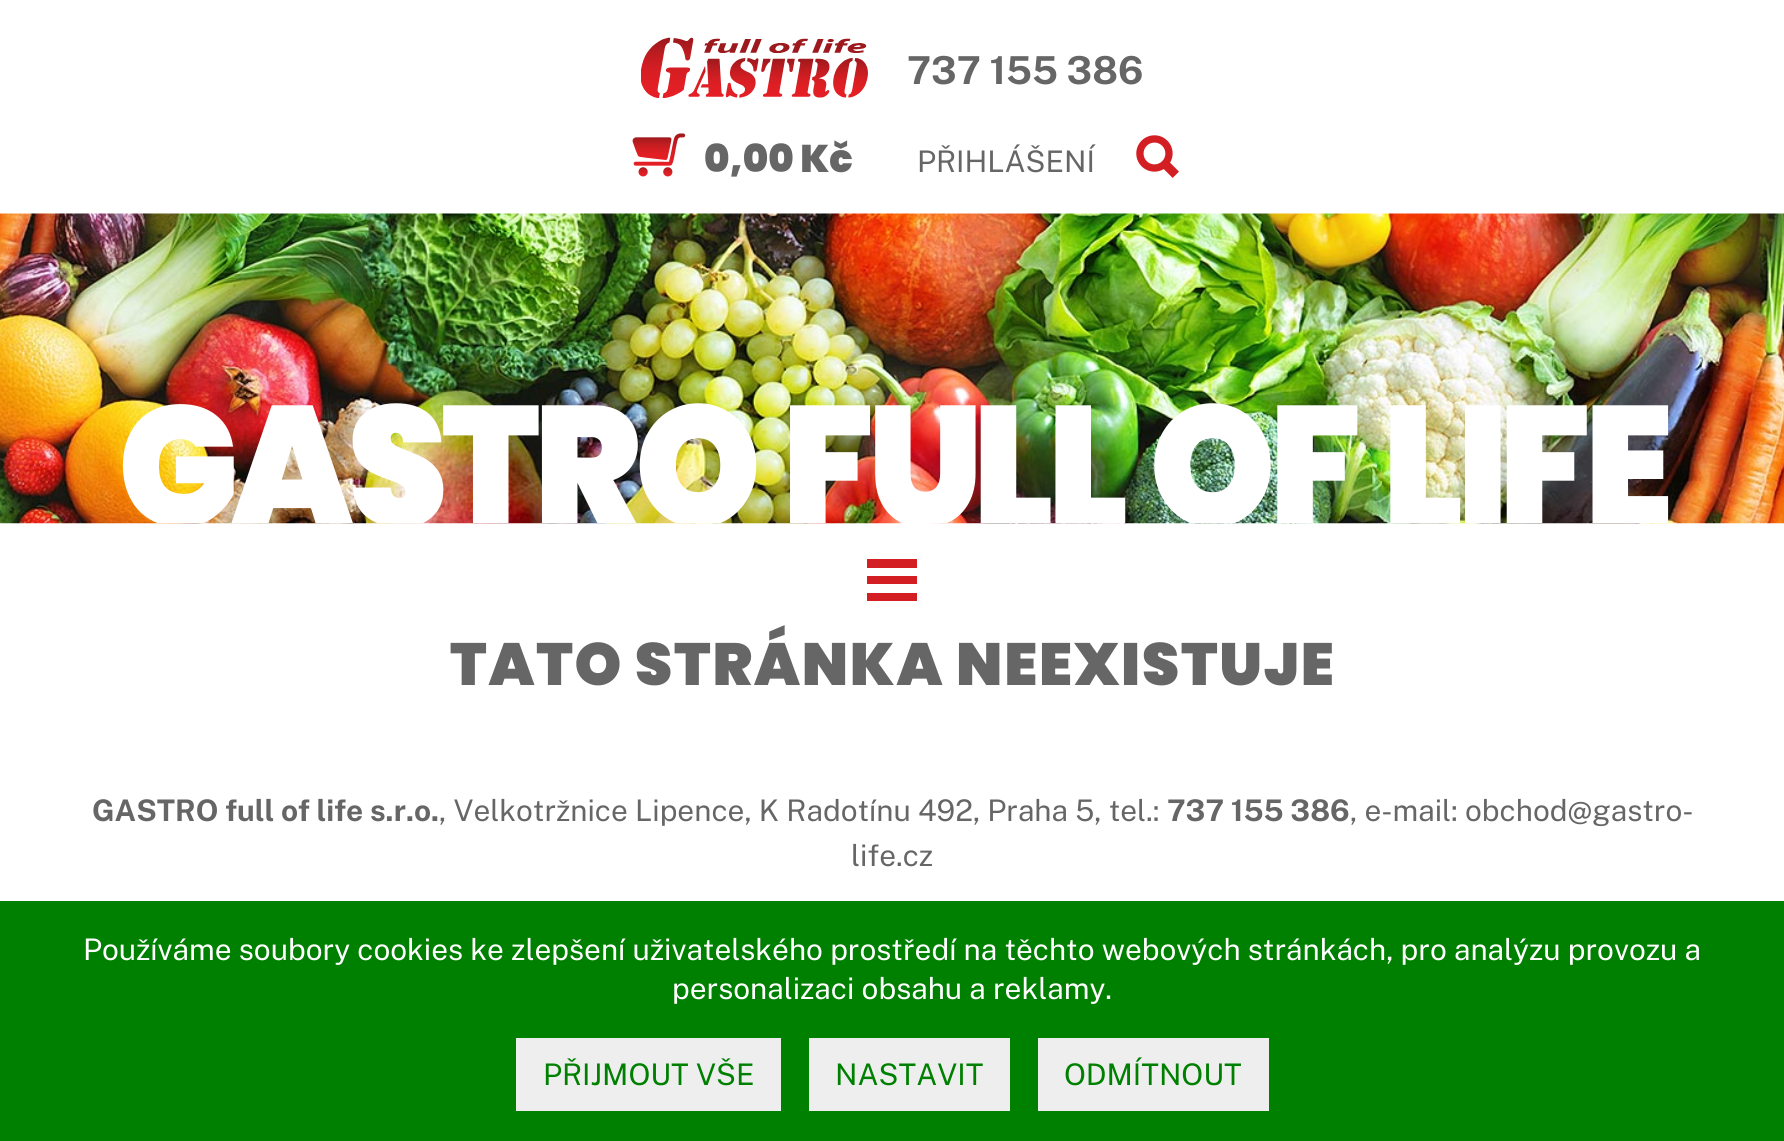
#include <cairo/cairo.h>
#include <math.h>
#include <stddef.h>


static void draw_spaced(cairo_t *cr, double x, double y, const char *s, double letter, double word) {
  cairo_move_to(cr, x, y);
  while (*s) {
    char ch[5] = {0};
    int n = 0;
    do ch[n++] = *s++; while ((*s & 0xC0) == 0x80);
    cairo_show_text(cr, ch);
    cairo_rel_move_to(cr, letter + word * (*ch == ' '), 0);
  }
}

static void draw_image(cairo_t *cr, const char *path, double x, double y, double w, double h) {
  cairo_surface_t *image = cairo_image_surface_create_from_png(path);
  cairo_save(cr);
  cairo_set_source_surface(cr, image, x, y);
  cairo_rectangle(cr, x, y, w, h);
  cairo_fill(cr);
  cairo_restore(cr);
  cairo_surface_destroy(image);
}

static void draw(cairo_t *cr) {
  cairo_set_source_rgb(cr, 1, 1, 1);
  cairo_paint(cr);
  draw_image(cr, "images/1.png", 641, 37, 227, 61);
  draw_image(cr, "images/2.png", 632, 133, 54, 44);
  draw_image(cr, "images/3.png", 1136, 135, 43, 43);
  draw_image(cr, "images/4.png", 0, 213, 1784, 311);
  draw_image(cr, "images/5.png", 122, 403, 1547, 120);
  cairo_set_source_rgb(cr, 211 / 255.0, 30 / 255.0, 35 / 255.0);
  cairo_rectangle(cr, 867, 559, 50, 9);
  cairo_fill(cr);
  cairo_rectangle(cr, 867, 576, 50, 8);
  cairo_fill(cr);
  cairo_rectangle(cr, 867, 593, 50, 8);
  cairo_fill(cr);
  cairo_set_source_rgb(cr, 0, 128 / 255.0, 0);
  cairo_rectangle(cr, 0, 901, 1784, 240);
  cairo_fill(cr);
  cairo_set_source_rgb(cr, 238 / 255.0, 238 / 255.0, 238 / 255.0);
  cairo_rectangle(cr, 516, 1038, 265, 73);
  cairo_fill(cr);
  cairo_rectangle(cr, 809, 1038, 201, 73);
  cairo_fill(cr);
  cairo_rectangle(cr, 1038, 1038, 231, 73);
  cairo_fill(cr);
  cairo_select_font_face(cr, "Public Sans", CAIRO_FONT_SLANT_NORMAL, CAIRO_FONT_WEIGHT_BOLD);
  cairo_set_font_size(cr, 38.5);
  cairo_set_source_rgb(cr, 102 / 255.0, 102 / 255.0, 102 / 255.0);
  cairo_move_to(cr, 907, 84);
  cairo_show_text(cr, "737 155 386");
  cairo_select_font_face(cr, "Poppins Black", CAIRO_FONT_SLANT_NORMAL, CAIRO_FONT_WEIGHT_NORMAL);
  cairo_move_to(cr, 704, 172);
  cairo_show_text(cr, "0,00 Kč");
  cairo_select_font_face(cr, "Public Sans", CAIRO_FONT_SLANT_NORMAL, CAIRO_FONT_WEIGHT_NORMAL);
  cairo_set_font_size(cr, 29.75);
  cairo_move_to(cr, 917, 172);
  cairo_show_text(cr, "PŘIHLÁŠENÍ");
  cairo_select_font_face(cr, "Poppins Black", CAIRO_FONT_SLANT_NORMAL, CAIRO_FONT_WEIGHT_NORMAL);
  cairo_set_font_size(cr, 59.5);
  draw_spaced(cr, 450, 685, "TATO STRÁNKA NEEXISTUJE", 1.75, 0);
  cairo_select_font_face(cr, "Public Sans", CAIRO_FONT_SLANT_NORMAL, CAIRO_FONT_WEIGHT_BOLD);
  cairo_set_font_size(cr, 29.75);
  cairo_move_to(cr, 92, 821);
  cairo_show_text(cr, "GASTRO full of life s.r.o.");
  cairo_select_font_face(cr, "Public Sans", CAIRO_FONT_SLANT_NORMAL, CAIRO_FONT_WEIGHT_NORMAL);
  cairo_move_to(cr, 439, 821);
  cairo_show_text(cr, ", Velkotržnice Lipence, K Radotínu 492, Praha 5, tel.:");
  cairo_select_font_face(cr, "Public Sans", CAIRO_FONT_SLANT_NORMAL, CAIRO_FONT_WEIGHT_BOLD);
  cairo_move_to(cr, 1167, 821);
  cairo_show_text(cr, "737 155 386");
  cairo_select_font_face(cr, "Public Sans", CAIRO_FONT_SLANT_NORMAL, CAIRO_FONT_WEIGHT_NORMAL);
  cairo_move_to(cr, 1350, 821);
  cairo_show_text(cr, ", e-mail: obchod@gastro-");
  cairo_move_to(cr, 851, 866);
  cairo_show_text(cr, "life.cz");
  cairo_set_source_rgb(cr, 1, 1, 1);
  cairo_move_to(cr, 83, 960);
  cairo_show_text(cr, "Používáme soubory cookies ke zlepšení uživatelského prostředí na těchto webových stránkách, pro analýzu provozu a");
  cairo_move_to(cr, 672, 999);
  cairo_show_text(cr, "personalizaci obsahu a reklamy.");
  cairo_set_source_rgb(cr, 0, 128 / 255.0, 0);
  cairo_move_to(cr, 543, 1085);
  cairo_show_text(cr, "PŘIJMOUT VŠE");
  cairo_move_to(cr, 835, 1085);
  cairo_show_text(cr, "NASTAVIT");
  cairo_move_to(cr, 1064, 1085);
  cairo_show_text(cr, "ODMÍTNOUT");
}

int main(void) {
  cairo_surface_t *surface = cairo_image_surface_create(CAIRO_FORMAT_RGB24, 1784, 1141);
  cairo_t *cr = cairo_create(surface);
  cairo_font_options_t *options = cairo_font_options_create();
  cairo_font_options_set_hint_metrics(options, CAIRO_HINT_METRICS_OFF);
  cairo_font_options_set_hint_style(options, CAIRO_HINT_STYLE_NONE);
  cairo_set_font_options(cr, options);
  cairo_set_miter_limit(cr, 4);
  draw(cr);
  cairo_surface_write_to_png(surface, "out.png");
  cairo_font_options_destroy(options);
  cairo_destroy(cr);
  cairo_surface_destroy(surface);
  return 0;
}
